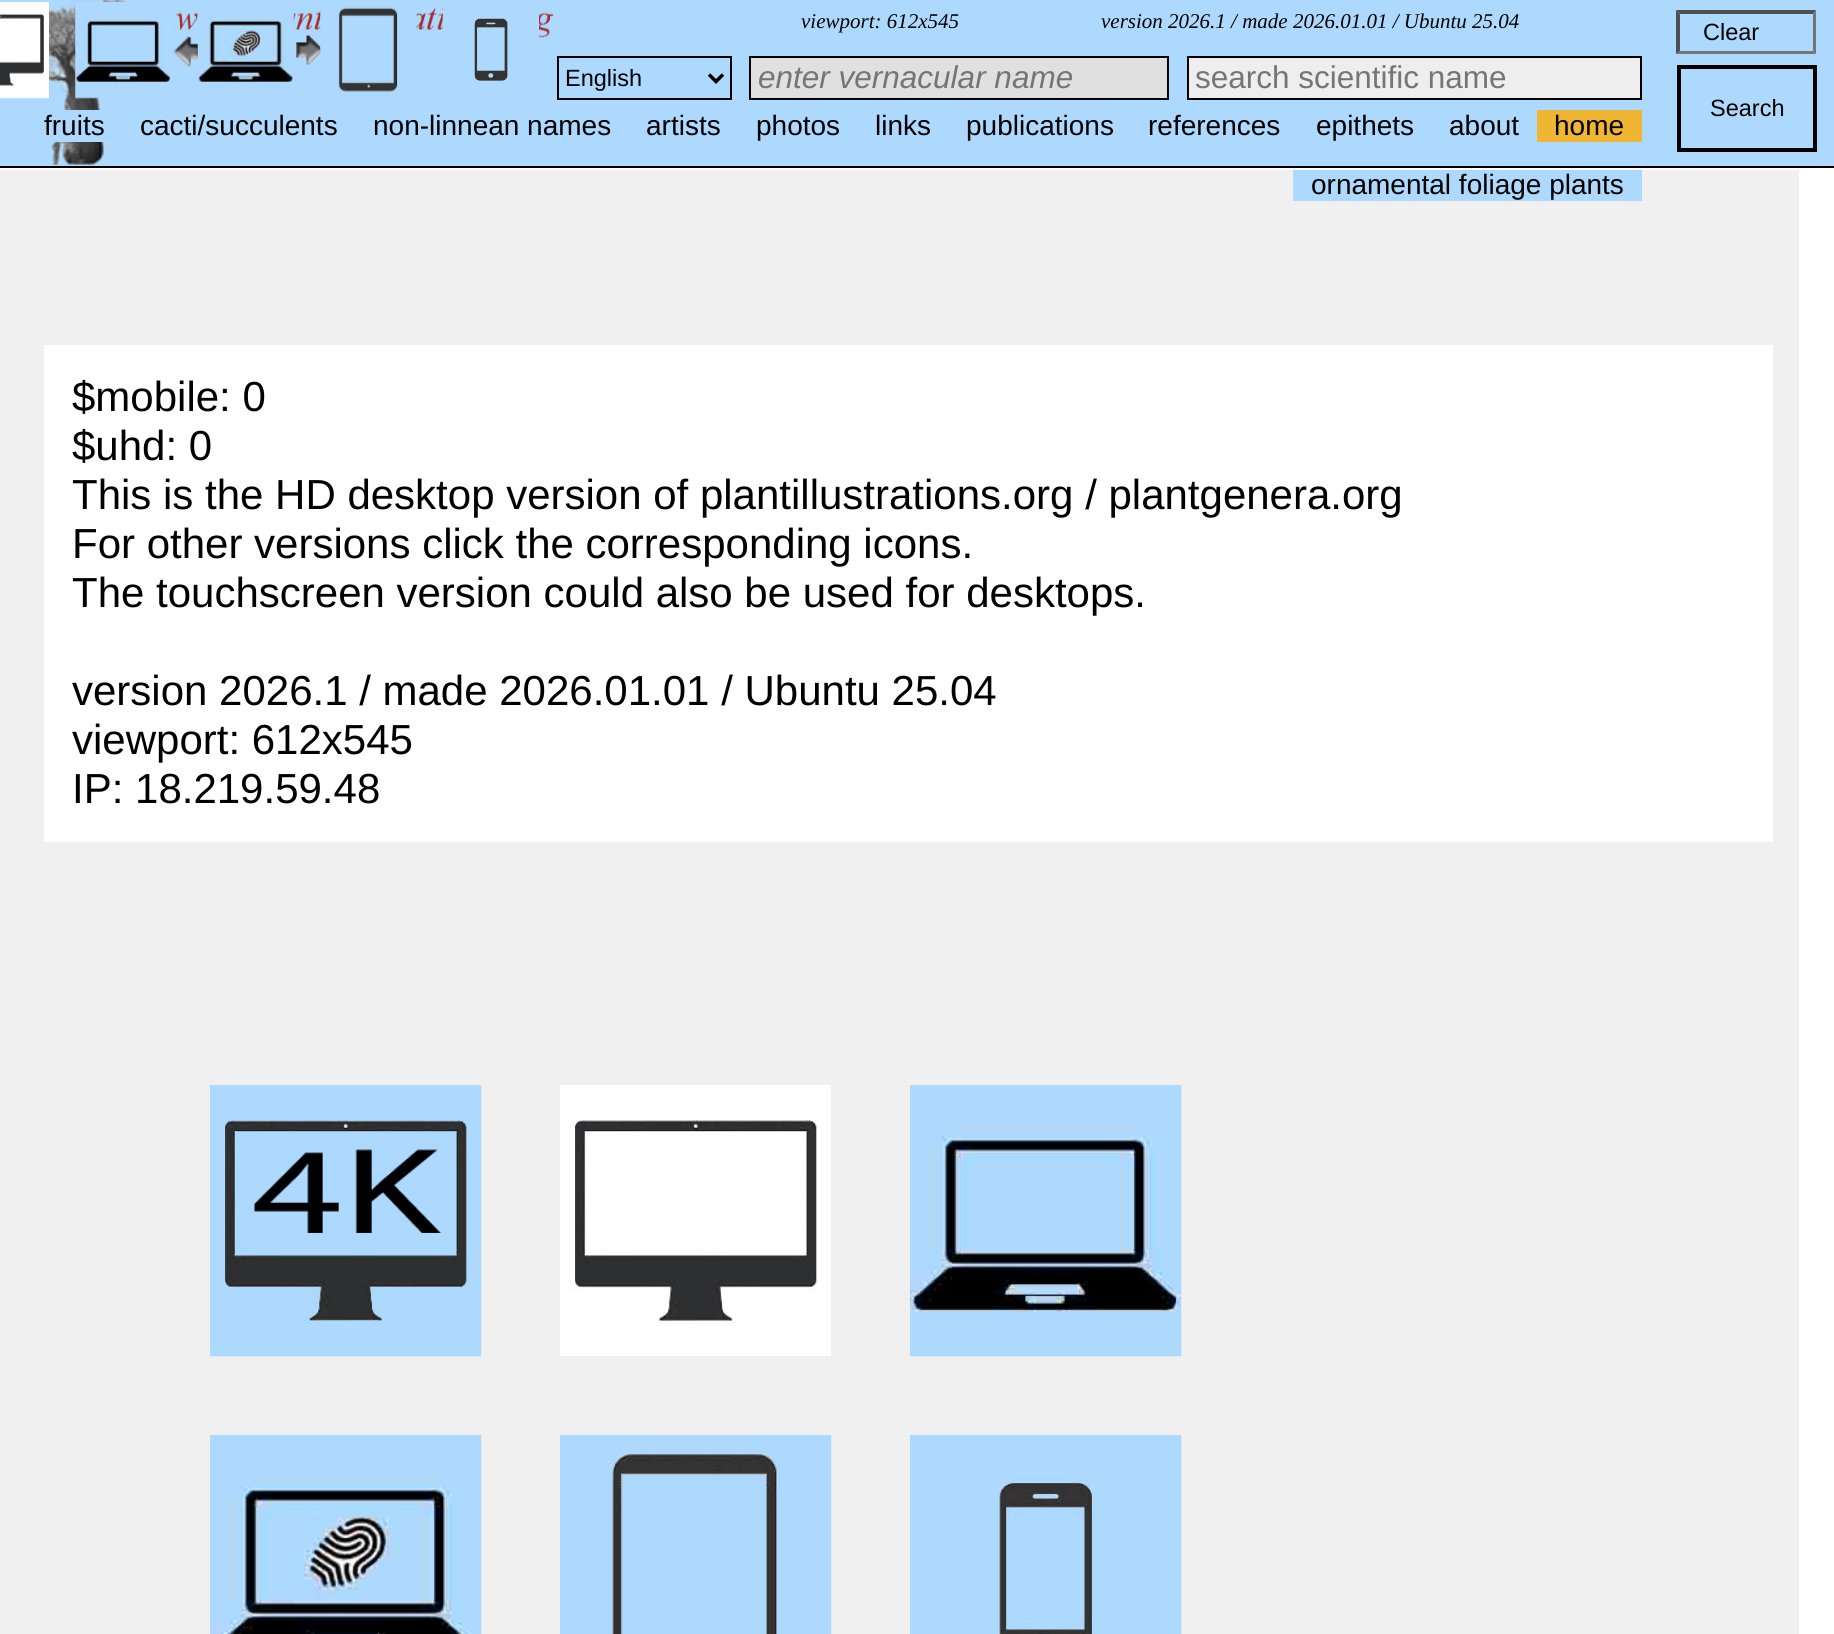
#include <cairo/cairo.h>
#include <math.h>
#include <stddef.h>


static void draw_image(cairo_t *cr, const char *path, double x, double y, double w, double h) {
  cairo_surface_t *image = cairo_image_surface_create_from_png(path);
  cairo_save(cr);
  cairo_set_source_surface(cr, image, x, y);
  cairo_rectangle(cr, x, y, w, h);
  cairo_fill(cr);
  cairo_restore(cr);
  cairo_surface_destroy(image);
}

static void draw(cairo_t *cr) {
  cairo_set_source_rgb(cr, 1, 1, 1);
  cairo_paint(cr);
  cairo_set_source_rgb(cr, 173 / 255.0, 217 / 255.0, 254 / 255.0);
  cairo_rectangle(cr, 0, 0, 1834, 166);
  cairo_fill(cr);
  cairo_set_source_rgb(cr, 0, 0, 0);
  cairo_rectangle(cr, 0, 166, 1834, 2);
  cairo_fill(cr);
  draw_image(cr, "images/1.png", 0, 0, 175, 165);
  draw_image(cr, "images/2.png", 0, 2, 49, 97);
  draw_image(cr, "images/3.png", 75, 2, 97, 97);
  draw_image(cr, "images/7.png", 175, 4, 379, 34);
  draw_image(cr, "images/8.png", 173, 36, 25, 31);
  draw_image(cr, "images/4.png", 197, 4, 98, 79);
  draw_image(cr, "images/9.png", 296, 35, 25, 30);
  draw_image(cr, "images/5.png", 320, 4, 97, 88);
  draw_image(cr, "images/6.png", 442, 7, 97, 74);
  cairo_set_source_rgb(cr, 79 / 255.0, 79 / 255.0, 79 / 255.0);
  cairo_new_path(cr);
  cairo_move_to(cr, 1676, 10);
  cairo_line_to(cr, 1816, 10);
  cairo_line_to(cr, 1813, 14);
  cairo_line_to(cr, 1680, 14);
  cairo_close_path(cr);
  cairo_fill(cr);
  cairo_set_source_rgb(cr, 118 / 255.0, 118 / 255.0, 118 / 255.0);
  cairo_new_path(cr);
  cairo_move_to(cr, 1816, 10);
  cairo_line_to(cr, 1816, 54);
  cairo_line_to(cr, 1813, 51);
  cairo_line_to(cr, 1813, 14);
  cairo_close_path(cr);
  cairo_fill(cr);
  cairo_new_path(cr);
  cairo_move_to(cr, 1816, 54);
  cairo_line_to(cr, 1676, 54);
  cairo_line_to(cr, 1680, 51);
  cairo_line_to(cr, 1813, 51);
  cairo_close_path(cr);
  cairo_fill(cr);
  cairo_set_source_rgb(cr, 79 / 255.0, 79 / 255.0, 79 / 255.0);
  cairo_new_path(cr);
  cairo_move_to(cr, 1676, 54);
  cairo_line_to(cr, 1676, 10);
  cairo_line_to(cr, 1680, 14);
  cairo_line_to(cr, 1680, 51);
  cairo_close_path(cr);
  cairo_fill(cr);
  cairo_rectangle(cr, 558, 57, 173, 42);
  cairo_set_source_rgb(cr, 0, 0, 0);
  cairo_stroke(cr);
  cairo_new_path(cr);
  cairo_move_to(cr, 709, 74.5);
  cairo_line_to(cr, 716, 81.5);
  cairo_line_to(cr, 723, 74.5);
  cairo_set_line_width(cr, 3.5);
  cairo_stroke(cr);
  cairo_set_source_rgb(cr, 224 / 255.0, 224 / 255.0, 224 / 255.0);
  cairo_rectangle(cr, 750, 57, 418, 42);
  cairo_fill_preserve(cr);
  cairo_set_source_rgb(cr, 0, 0, 0);
  cairo_set_line_width(cr, 2);
  cairo_stroke(cr);
  cairo_set_source_rgb(cr, 238 / 255.0, 238 / 255.0, 238 / 255.0);
  cairo_rectangle(cr, 1188, 57, 453, 42);
  cairo_fill_preserve(cr);
  cairo_set_source_rgb(cr, 0, 0, 0);
  cairo_stroke(cr);
  cairo_rectangle(cr, 1679, 67, 136, 83);
  cairo_set_line_width(cr, 4);
  cairo_stroke(cr);
  cairo_set_source_rgb(cr, 173 / 255.0, 217 / 255.0, 254 / 255.0);
  cairo_rectangle(cr, 42, 110, 63, 32);
  cairo_fill(cr);
  cairo_set_source_rgb(cr, 240 / 255.0, 181 / 255.0, 49 / 255.0);
  cairo_rectangle(cr, 1537, 110, 105, 32);
  cairo_fill(cr);
  cairo_set_source_rgb(cr, 240 / 255.0, 240 / 255.0, 240 / 255.0);
  cairo_rectangle(cr, 0, 170, 1799, 1464);
  cairo_fill(cr);
  cairo_set_source_rgb(cr, 173 / 255.0, 217 / 255.0, 254 / 255.0);
  cairo_rectangle(cr, 1293, 170, 349, 31);
  cairo_fill(cr);
  cairo_set_source_rgb(cr, 1, 1, 1);
  cairo_rectangle(cr, 44, 345, 1729, 497);
  cairo_fill(cr);
  draw_image(cr, "images/10.png", 210, 1085, 272, 272);
  draw_image(cr, "images/11.png", 560, 1085, 271, 271);
  draw_image(cr, "images/12.png", 910, 1085, 272, 272);
  draw_image(cr, "images/13.png", 210, 1435, 272, 199);
  draw_image(cr, "images/14.png", 560, 1435, 272, 199);
  draw_image(cr, "images/15.png", 910, 1435, 272, 199);
  cairo_select_font_face(cr, "Liberation Serif", CAIRO_FONT_SLANT_ITALIC, CAIRO_FONT_WEIGHT_NORMAL);
  cairo_set_font_size(cr, 21);
  cairo_set_source_rgb(cr, 0, 0, 0);
  cairo_move_to(cr, 801, 28);
  cairo_show_text(cr, "viewport: 612x545");
  cairo_move_to(cr, 1101, 28);
  cairo_show_text(cr, "version 2026.1 / made 2026.01.01 / Ubuntu 25.04");
  cairo_select_font_face(cr, "Liberation Sans", CAIRO_FONT_SLANT_NORMAL, CAIRO_FONT_WEIGHT_NORMAL);
  cairo_set_font_size(cr, 23.5);
  cairo_move_to(cr, 1703, 40);
  cairo_show_text(cr, "Clear");
  cairo_move_to(cr, 565, 86);
  cairo_show_text(cr, "English");
  cairo_select_font_face(cr, "Liberation Sans", CAIRO_FONT_SLANT_ITALIC, CAIRO_FONT_WEIGHT_NORMAL);
  cairo_set_font_size(cr, 31.5);
  cairo_set_source_rgb(cr, 117 / 255.0, 117 / 255.0, 117 / 255.0);
  cairo_move_to(cr, 758, 88);
  cairo_show_text(cr, "enter vernacular name");
  cairo_select_font_face(cr, "Liberation Sans", CAIRO_FONT_SLANT_NORMAL, CAIRO_FONT_WEIGHT_NORMAL);
  cairo_move_to(cr, 1195, 88);
  cairo_show_text(cr, "search scientific name");
  cairo_set_font_size(cr, 23.5);
  cairo_set_source_rgb(cr, 0, 0, 0);
  cairo_move_to(cr, 1710, 116);
  cairo_show_text(cr, "Search");
  cairo_set_font_size(cr, 28);
  cairo_move_to(cr, 44, 135);
  cairo_show_text(cr, "fruits");
  cairo_move_to(cr, 140, 135);
  cairo_show_text(cr, "cacti/succulents");
  cairo_move_to(cr, 373, 135);
  cairo_show_text(cr, "non-linnean names");
  cairo_move_to(cr, 646, 135);
  cairo_show_text(cr, "artists");
  cairo_move_to(cr, 756, 135);
  cairo_show_text(cr, "photos");
  cairo_move_to(cr, 875, 135);
  cairo_show_text(cr, "links");
  cairo_move_to(cr, 966, 135);
  cairo_show_text(cr, "publications");
  cairo_move_to(cr, 1148, 135);
  cairo_show_text(cr, "references");
  cairo_move_to(cr, 1316, 135);
  cairo_show_text(cr, "epithets");
  cairo_move_to(cr, 1449, 135);
  cairo_show_text(cr, "about");
  cairo_move_to(cr, 1554, 135);
  cairo_show_text(cr, "home");
  cairo_move_to(cr, 1311, 194);
  cairo_show_text(cr, "ornamental foliage plants");
  cairo_set_font_size(cr, 42);
  cairo_move_to(cr, 72, 411);
  cairo_show_text(cr, "$mobile: 0");
  cairo_move_to(cr, 72, 460);
  cairo_show_text(cr, "$uhd: 0");
  cairo_move_to(cr, 72, 509);
  cairo_show_text(cr, "This is the HD desktop version of plantillustrations.org / plantgenera.org");
  cairo_move_to(cr, 72, 558);
  cairo_show_text(cr, "For other versions click the corresponding icons.");
  cairo_move_to(cr, 72, 607);
  cairo_show_text(cr, "The touchscreen version could also be used for desktops.");
  cairo_move_to(cr, 72, 705);
  cairo_show_text(cr, "version 2026.1 / made 2026.01.01 / Ubuntu 25.04");
  cairo_move_to(cr, 72, 754);
  cairo_show_text(cr, "viewport: 612x545");
  cairo_move_to(cr, 72, 803);
  cairo_show_text(cr, "IP: 18.219.59.48");
}

int main(void) {
  cairo_surface_t *surface = cairo_image_surface_create(CAIRO_FORMAT_RGB24, 1834, 1634);
  cairo_t *cr = cairo_create(surface);
  cairo_font_options_t *options = cairo_font_options_create();
  cairo_font_options_set_hint_metrics(options, CAIRO_HINT_METRICS_OFF);
  cairo_font_options_set_hint_style(options, CAIRO_HINT_STYLE_NONE);
  cairo_set_font_options(cr, options);
  cairo_set_miter_limit(cr, 4);
  draw(cr);
  cairo_surface_write_to_png(surface, "out.png");
  cairo_font_options_destroy(options);
  cairo_destroy(cr);
  cairo_surface_destroy(surface);
  return 0;
}
